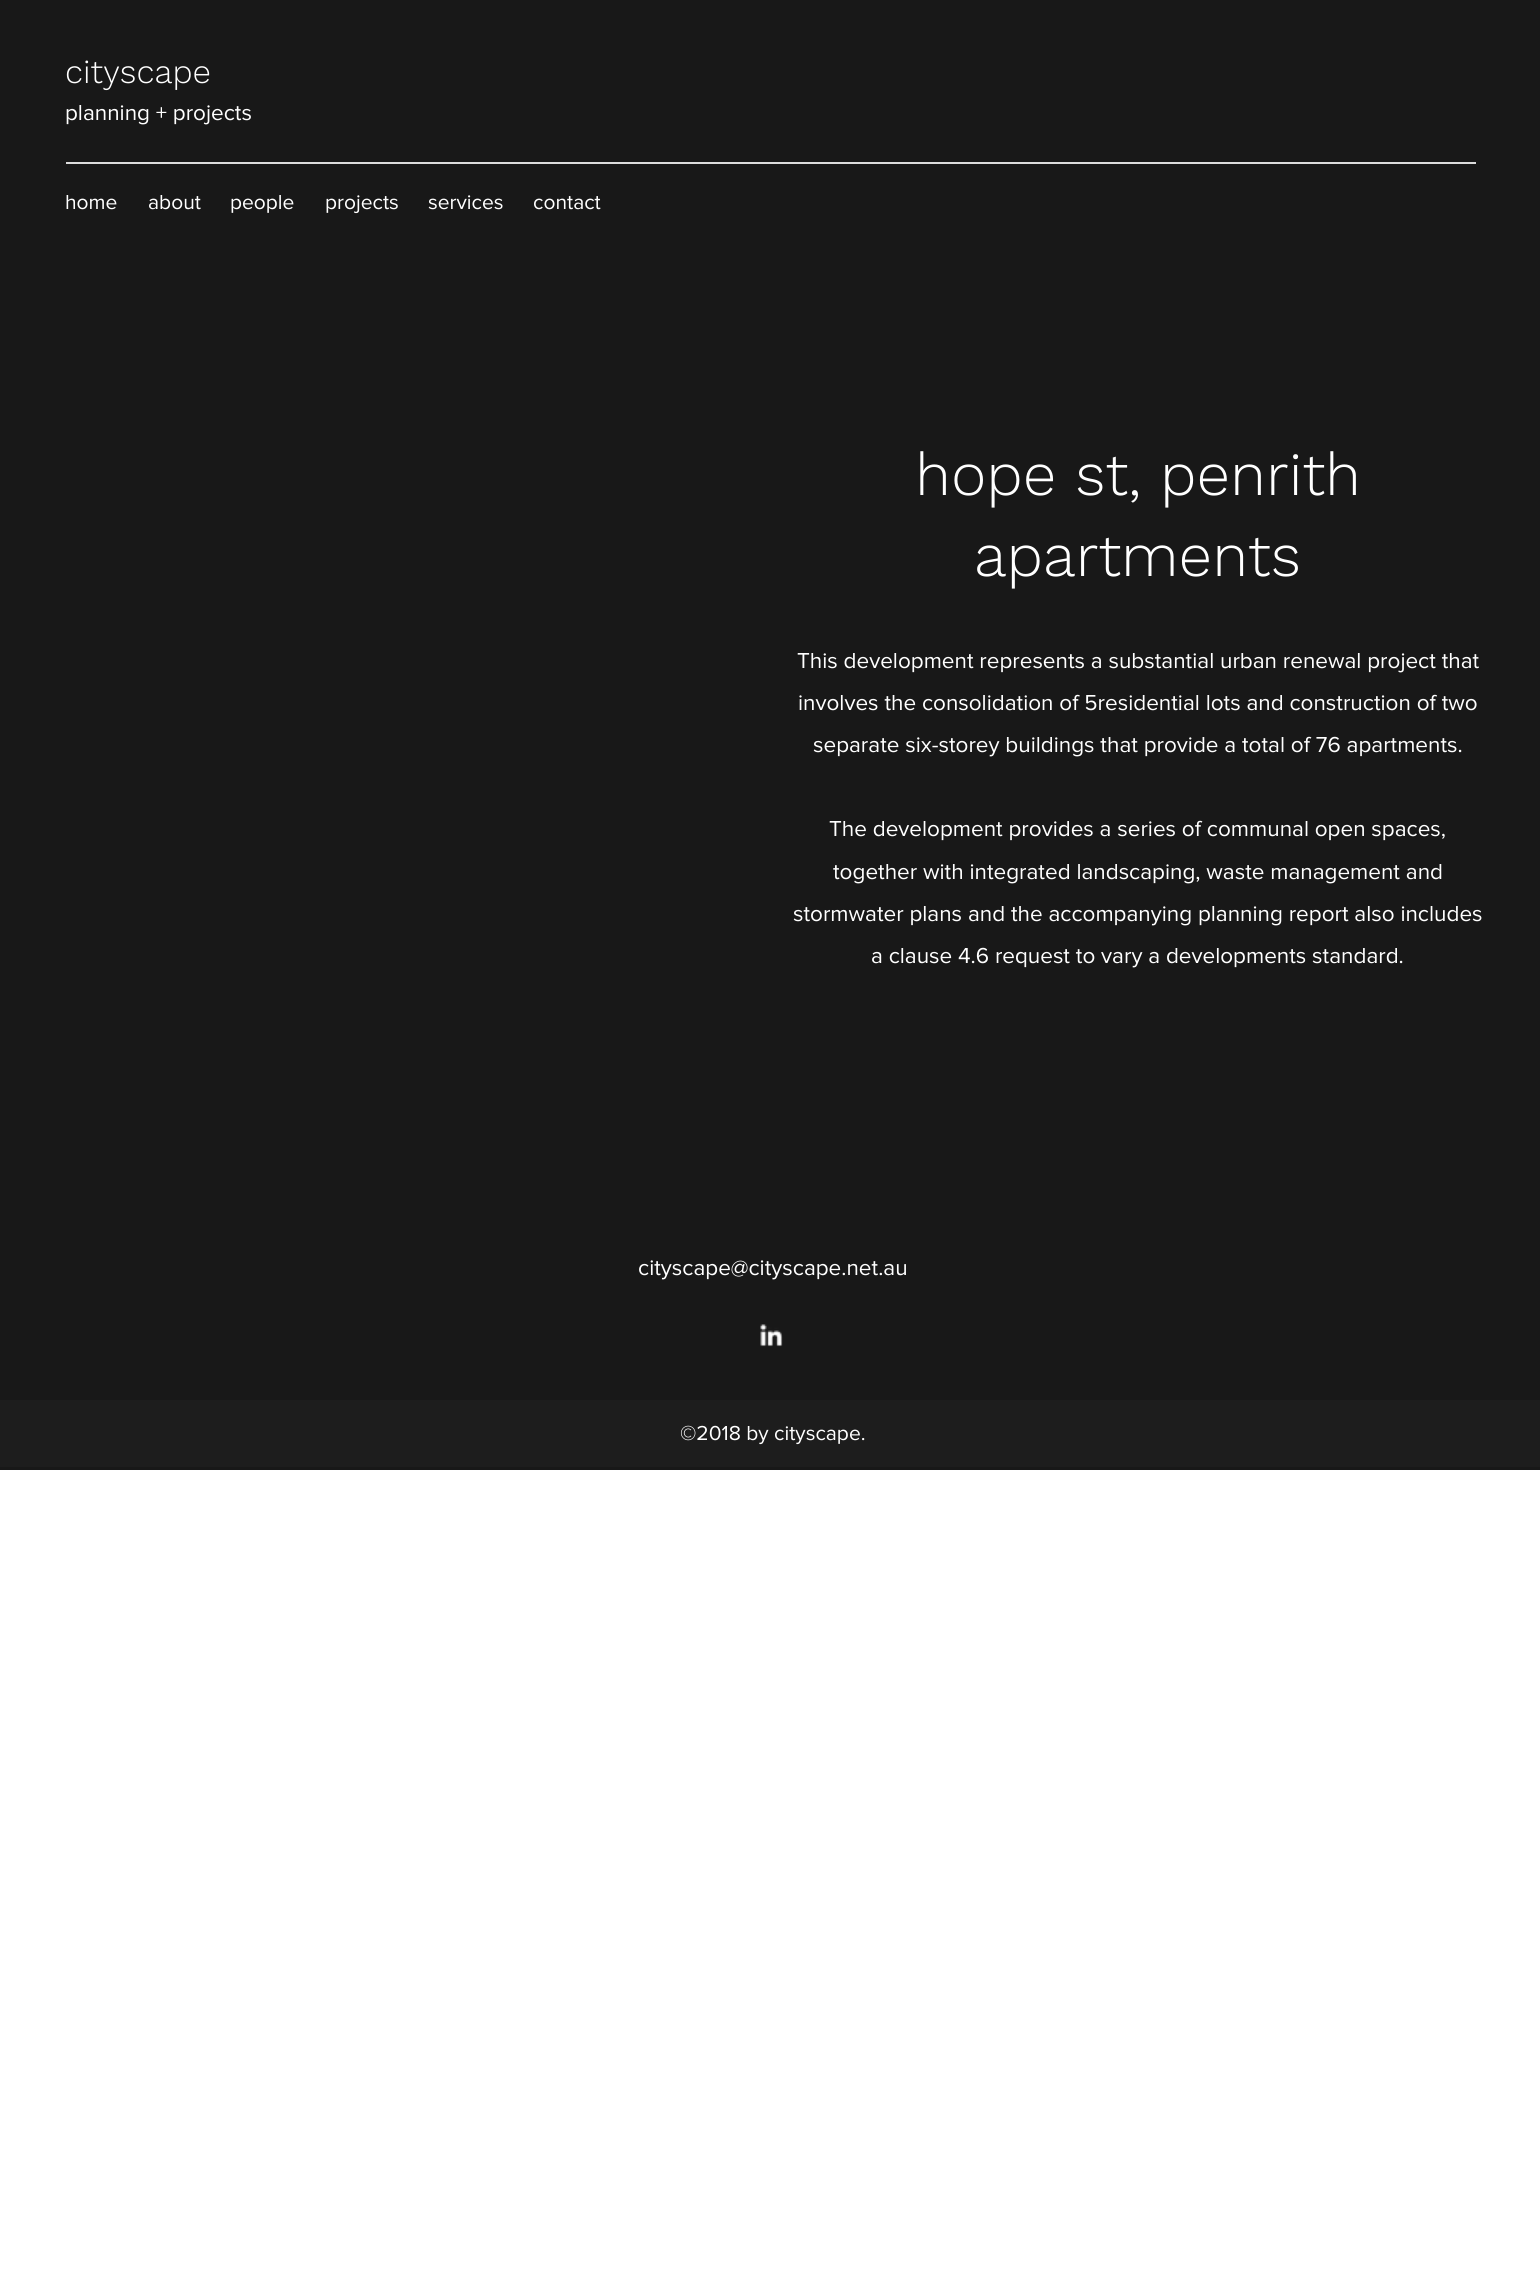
#include <cairo/cairo.h>
#include <math.h>
#include <stddef.h>


static void draw_image(cairo_t *cr, const char *path, double x, double y, double w, double h) {
  cairo_surface_t *image = cairo_image_surface_create_from_png(path);
  cairo_save(cr);
  cairo_set_source_surface(cr, image, x, y);
  cairo_rectangle(cr, x, y, w, h);
  cairo_fill(cr);
  cairo_restore(cr);
  cairo_surface_destroy(image);
}

static void draw(cairo_t *cr) {
  cairo_set_source_rgb(cr, 1, 1, 1);
  cairo_paint(cr);
  cairo_set_source_rgb(cr, 24 / 255.0, 24 / 255.0, 24 / 255.0);
  cairo_rectangle(cr, 0, 0, 1540, 1470);
  cairo_fill(cr);
  cairo_set_source_rgb(cr, 220 / 255.0, 220 / 255.0, 220 / 255.0);
  cairo_rectangle(cr, 66, 162, 1410, 2);
  cairo_fill(cr);
  draw_image(cr, "images/1.png", 760, 1324, 23, 23);
  cairo_set_source_rgb(cr, 29 / 255.0, 29 / 255.0, 29 / 255.0);
  cairo_rectangle(cr, 0, 1400, 1540, 67);
  cairo_fill(cr);
  cairo_select_font_face(cr, "Work Sans Light", CAIRO_FONT_SLANT_NORMAL, CAIRO_FONT_WEIGHT_NORMAL);
  cairo_set_font_size(cr, 33);
  cairo_set_source_rgb(cr, 1, 1, 1);
  cairo_move_to(cr, 65, 83);
  cairo_show_text(cr, "cityscape");
  cairo_select_font_face(cr, "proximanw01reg", CAIRO_FONT_SLANT_NORMAL, CAIRO_FONT_WEIGHT_NORMAL);
  cairo_set_font_size(cr, 22.5);
  cairo_move_to(cr, 65, 120);
  cairo_show_text(cr, "planning + projects");
  cairo_set_font_size(cr, 21);
  cairo_move_to(cr, 65, 209);
  cairo_show_text(cr, "home");
  cairo_move_to(cr, 148, 209);
  cairo_show_text(cr, "about");
  cairo_move_to(cr, 230, 209);
  cairo_show_text(cr, "people");
  cairo_move_to(cr, 325, 209);
  cairo_show_text(cr, "projects");
  cairo_move_to(cr, 428, 209);
  cairo_show_text(cr, "services");
  cairo_move_to(cr, 533, 209);
  cairo_show_text(cr, "contact");
  cairo_select_font_face(cr, "Work Sans Light", CAIRO_FONT_SLANT_NORMAL, CAIRO_FONT_WEIGHT_NORMAL);
  cairo_set_font_size(cr, 60);
  cairo_move_to(cr, 915, 495);
  cairo_show_text(cr, "hope st, penrith");
  cairo_move_to(cr, 974, 576);
  cairo_show_text(cr, "apartments");
  cairo_select_font_face(cr, "proximanw01reg", CAIRO_FONT_SLANT_NORMAL, CAIRO_FONT_WEIGHT_NORMAL);
  cairo_set_font_size(cr, 22.5);
  cairo_move_to(cr, 797, 668);
  cairo_show_text(cr, "This development represents a substantial urban renewal project that");
  cairo_move_to(cr, 798, 710);
  cairo_show_text(cr, "involves the consolidation of 5residential lots and construction of two");
  cairo_move_to(cr, 813, 752);
  cairo_show_text(cr, "separate six-storey buildings that provide a total of 76 apartments.");
  cairo_move_to(cr, 829, 836);
  cairo_show_text(cr, "The development provides a series of communal open spaces,");
  cairo_move_to(cr, 833, 879);
  cairo_show_text(cr, "together with integrated landscaping, waste management and");
  cairo_move_to(cr, 793, 921);
  cairo_show_text(cr, "stormwater plans and the accompanying planning report also includes");
  cairo_move_to(cr, 871, 963);
  cairo_show_text(cr, "a clause 4.6 request to vary a developments standard.");
  cairo_move_to(cr, 638, 1275);
  cairo_show_text(cr, "cityscape@cityscape.net.au");
  cairo_set_font_size(cr, 21);
  cairo_move_to(cr, 680, 1440);
  cairo_show_text(cr, "©2018 by cityscape.");
}

int main(void) {
  cairo_surface_t *surface = cairo_image_surface_create(CAIRO_FORMAT_RGB24, 1540, 2286);
  cairo_t *cr = cairo_create(surface);
  cairo_font_options_t *options = cairo_font_options_create();
  cairo_font_options_set_hint_metrics(options, CAIRO_HINT_METRICS_OFF);
  cairo_font_options_set_hint_style(options, CAIRO_HINT_STYLE_NONE);
  cairo_set_font_options(cr, options);
  cairo_set_miter_limit(cr, 4);
  draw(cr);
  cairo_surface_write_to_png(surface, "out.png");
  cairo_font_options_destroy(options);
  cairo_destroy(cr);
  cairo_surface_destroy(surface);
  return 0;
}
